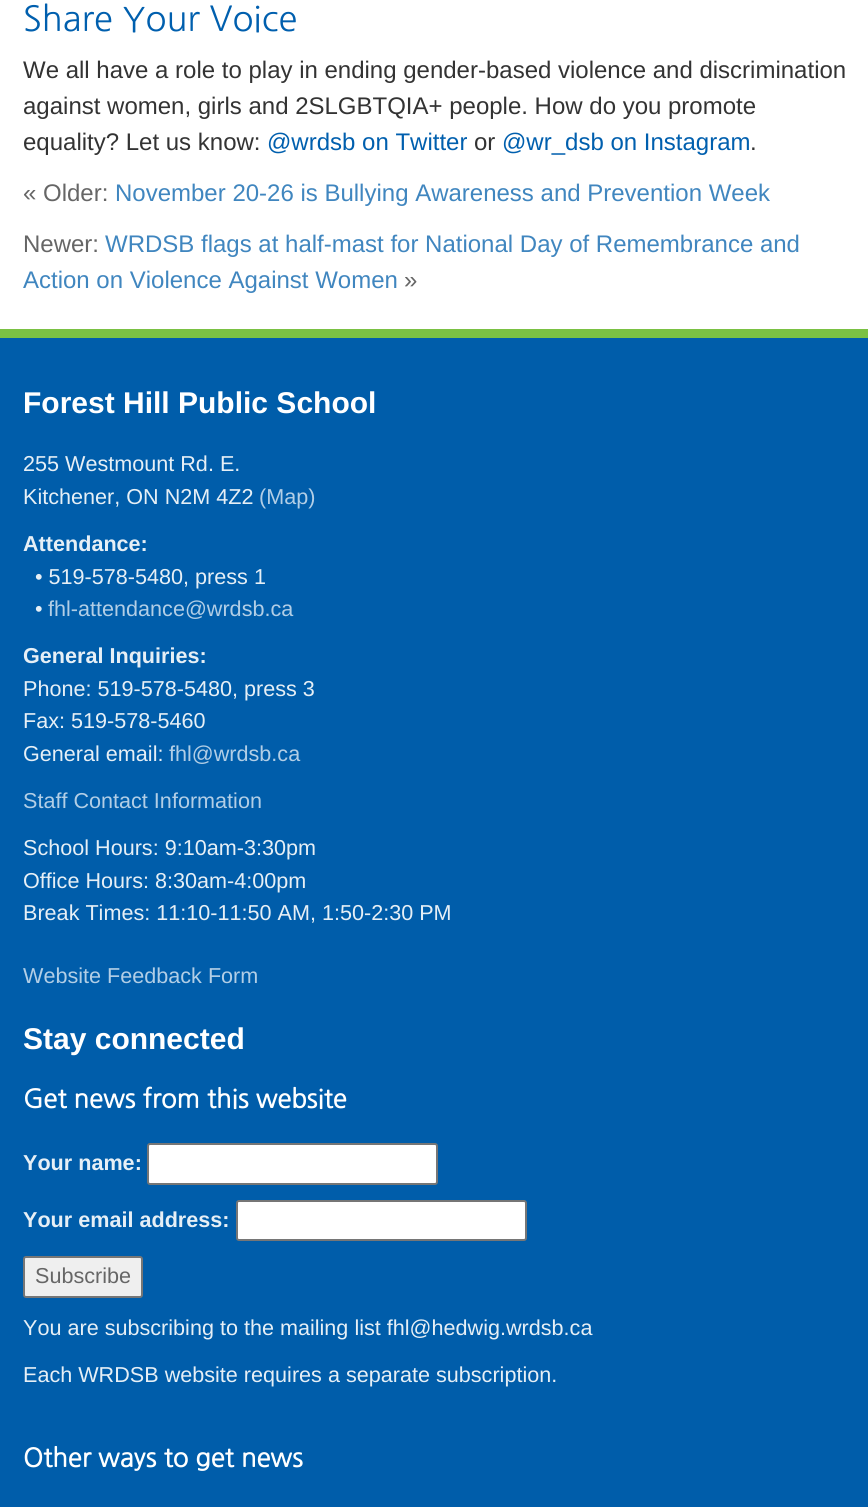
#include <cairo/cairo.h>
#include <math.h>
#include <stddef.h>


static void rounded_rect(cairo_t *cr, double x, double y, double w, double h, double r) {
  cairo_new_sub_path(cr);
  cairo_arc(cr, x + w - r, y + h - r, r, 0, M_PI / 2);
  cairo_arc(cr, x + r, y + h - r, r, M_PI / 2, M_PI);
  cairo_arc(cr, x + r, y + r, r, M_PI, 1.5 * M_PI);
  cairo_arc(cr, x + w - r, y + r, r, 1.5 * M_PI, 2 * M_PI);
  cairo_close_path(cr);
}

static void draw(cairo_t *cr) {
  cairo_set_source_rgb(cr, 1, 1, 1);
  cairo_paint(cr);
  cairo_set_source_rgb(cr, 0, 93 / 255.0, 170 / 255.0);
  cairo_rectangle(cr, 0, 338, 868, 1169);
  cairo_fill(cr);
  cairo_set_source_rgb(cr, 122 / 255.0, 193 / 255.0, 67 / 255.0);
  cairo_rectangle(cr, 0, 329, 868, 9);
  cairo_fill(cr);
  cairo_set_source_rgb(cr, 1, 1, 1);
  rounded_rect(cr, 148, 1144, 289, 40, 2);
  cairo_fill_preserve(cr);
  cairo_set_source_rgb(cr, 118 / 255.0, 118 / 255.0, 118 / 255.0);
  cairo_stroke(cr);
  cairo_set_source_rgb(cr, 1, 1, 1);
  rounded_rect(cr, 237, 1201, 289, 39, 2);
  cairo_fill_preserve(cr);
  cairo_set_source_rgb(cr, 118 / 255.0, 118 / 255.0, 118 / 255.0);
  cairo_stroke(cr);
  cairo_set_source_rgb(cr, 239 / 255.0, 239 / 255.0, 239 / 255.0);
  rounded_rect(cr, 24, 1257, 118, 40, 2);
  cairo_fill_preserve(cr);
  cairo_set_source_rgb(cr, 118 / 255.0, 118 / 255.0, 118 / 255.0);
  cairo_stroke(cr);
  cairo_select_font_face(cr, "NanumGothic", CAIRO_FONT_SLANT_NORMAL, CAIRO_FONT_WEIGHT_NORMAL);
  cairo_set_font_size(cr, 34.5);
  cairo_set_source_rgb(cr, 0, 95 / 255.0, 174 / 255.0);
  cairo_move_to(cr, 23, 31);
  cairo_show_text(cr, "Share Your Voice");
  cairo_select_font_face(cr, "Liberation Sans", CAIRO_FONT_SLANT_NORMAL, CAIRO_FONT_WEIGHT_NORMAL);
  cairo_set_font_size(cr, 24);
  cairo_set_source_rgb(cr, 51 / 255.0, 51 / 255.0, 51 / 255.0);
  cairo_move_to(cr, 23, 78);
  cairo_show_text(cr, "We all have a role to play in ending gender-based violence and discrimination");
  cairo_move_to(cr, 23, 114);
  cairo_show_text(cr, "against women, girls and 2SLGBTQIA+ people. How do you promote");
  cairo_move_to(cr, 23, 150);
  cairo_show_text(cr, "equality? Let us know:");
  cairo_set_source_rgb(cr, 0, 95 / 255.0, 174 / 255.0);
  cairo_move_to(cr, 267, 150);
  cairo_show_text(cr, "@wrdsb on Twitter");
  cairo_set_source_rgb(cr, 51 / 255.0, 51 / 255.0, 51 / 255.0);
  cairo_move_to(cr, 474, 150);
  cairo_show_text(cr, "or");
  cairo_set_source_rgb(cr, 0, 95 / 255.0, 174 / 255.0);
  cairo_move_to(cr, 502, 150);
  cairo_show_text(cr, "@wr_dsb on Instagram");
  cairo_set_source_rgb(cr, 51 / 255.0, 51 / 255.0, 51 / 255.0);
  cairo_move_to(cr, 750, 150);
  cairo_show_text(cr, ".");
  cairo_set_source_rgb(cr, 102 / 255.0, 102 / 255.0, 102 / 255.0);
  cairo_move_to(cr, 23, 201);
  cairo_show_text(cr, "« Older:");
  cairo_set_source_rgb(cr, 64 / 255.0, 134 / 255.0, 191 / 255.0);
  cairo_move_to(cr, 115, 201);
  cairo_show_text(cr, "November 20-26 is Bullying Awareness and Prevention Week");
  cairo_set_source_rgb(cr, 102 / 255.0, 102 / 255.0, 102 / 255.0);
  cairo_move_to(cr, 23, 252);
  cairo_show_text(cr, "Newer:");
  cairo_set_source_rgb(cr, 64 / 255.0, 134 / 255.0, 191 / 255.0);
  cairo_move_to(cr, 105, 252);
  cairo_show_text(cr, "WRDSB flags at half-mast for National Day of Remembrance and");
  cairo_move_to(cr, 23, 288);
  cairo_show_text(cr, "Action on Violence Against Women");
  cairo_set_source_rgb(cr, 102 / 255.0, 102 / 255.0, 102 / 255.0);
  cairo_move_to(cr, 404, 288);
  cairo_show_text(cr, "»");
  cairo_select_font_face(cr, "Liberation Sans", CAIRO_FONT_SLANT_NORMAL, CAIRO_FONT_WEIGHT_BOLD);
  cairo_set_font_size(cr, 30);
  cairo_set_source_rgb(cr, 1, 1, 1);
  cairo_move_to(cr, 23, 413);
  cairo_show_text(cr, "Forest Hill Public School");
  cairo_select_font_face(cr, "Liberation Sans", CAIRO_FONT_SLANT_NORMAL, CAIRO_FONT_WEIGHT_NORMAL);
  cairo_set_font_size(cr, 21.6);
  cairo_set_source_rgb(cr, 230 / 255.0, 239 / 255.0, 246 / 255.0);
  cairo_move_to(cr, 23, 471);
  cairo_show_text(cr, "255 Westmount Rd. E.");
  cairo_move_to(cr, 23, 504);
  cairo_show_text(cr, "Kitchener, ON N2M 4Z2");
  cairo_set_source_rgb(cr, 178 / 255.0, 206 / 255.0, 230 / 255.0);
  cairo_move_to(cr, 259, 504);
  cairo_show_text(cr, "(Map)");
  cairo_select_font_face(cr, "Liberation Sans", CAIRO_FONT_SLANT_NORMAL, CAIRO_FONT_WEIGHT_BOLD);
  cairo_set_source_rgb(cr, 230 / 255.0, 239 / 255.0, 246 / 255.0);
  cairo_move_to(cr, 23, 551);
  cairo_show_text(cr, "Attendance:");
  cairo_select_font_face(cr, "Liberation Sans", CAIRO_FONT_SLANT_NORMAL, CAIRO_FONT_WEIGHT_NORMAL);
  cairo_move_to(cr, 35, 584);
  cairo_show_text(cr, "• 519-578-5480, press 1");
  cairo_move_to(cr, 35, 616);
  cairo_show_text(cr, "•");
  cairo_set_source_rgb(cr, 178 / 255.0, 206 / 255.0, 230 / 255.0);
  cairo_move_to(cr, 48, 616);
  cairo_show_text(cr, "fhl-attendance@wrdsb.ca");
  cairo_select_font_face(cr, "Liberation Sans", CAIRO_FONT_SLANT_NORMAL, CAIRO_FONT_WEIGHT_BOLD);
  cairo_set_source_rgb(cr, 230 / 255.0, 239 / 255.0, 246 / 255.0);
  cairo_move_to(cr, 23, 663);
  cairo_show_text(cr, "General Inquiries:");
  cairo_select_font_face(cr, "Liberation Sans", CAIRO_FONT_SLANT_NORMAL, CAIRO_FONT_WEIGHT_NORMAL);
  cairo_move_to(cr, 23, 696);
  cairo_show_text(cr, "Phone: 519-578-5480, press 3");
  cairo_move_to(cr, 23, 728);
  cairo_show_text(cr, "Fax: 519-578-5460");
  cairo_move_to(cr, 23, 761);
  cairo_show_text(cr, "General email:");
  cairo_set_source_rgb(cr, 178 / 255.0, 206 / 255.0, 230 / 255.0);
  cairo_move_to(cr, 169, 761);
  cairo_show_text(cr, "fhl@wrdsb.ca");
  cairo_move_to(cr, 23, 808);
  cairo_show_text(cr, "Staff Contact Information");
  cairo_set_source_rgb(cr, 230 / 255.0, 239 / 255.0, 246 / 255.0);
  cairo_move_to(cr, 23, 855);
  cairo_show_text(cr, "School Hours: 9:10am-3:30pm");
  cairo_move_to(cr, 23, 888);
  cairo_show_text(cr, "Office Hours: 8:30am-4:00pm");
  cairo_move_to(cr, 23, 920);
  cairo_show_text(cr, "Break Times: 11:10-11:50 AM, 1:50-2:30 PM");
  cairo_set_source_rgb(cr, 178 / 255.0, 206 / 255.0, 230 / 255.0);
  cairo_move_to(cr, 23, 983);
  cairo_show_text(cr, "Website Feedback Form");
  cairo_select_font_face(cr, "Liberation Sans", CAIRO_FONT_SLANT_NORMAL, CAIRO_FONT_WEIGHT_BOLD);
  cairo_set_font_size(cr, 30);
  cairo_set_source_rgb(cr, 1, 1, 1);
  cairo_move_to(cr, 23, 1049);
  cairo_show_text(cr, "Stay connected");
  cairo_select_font_face(cr, "NanumGothic", CAIRO_FONT_SLANT_NORMAL, CAIRO_FONT_WEIGHT_BOLD);
  cairo_set_font_size(cr, 25.5);
  cairo_move_to(cr, 23, 1108);
  cairo_show_text(cr, "Get news from this website");
  cairo_select_font_face(cr, "Liberation Sans", CAIRO_FONT_SLANT_NORMAL, CAIRO_FONT_WEIGHT_BOLD);
  cairo_set_font_size(cr, 21.6);
  cairo_set_source_rgb(cr, 230 / 255.0, 239 / 255.0, 246 / 255.0);
  cairo_move_to(cr, 23, 1170);
  cairo_show_text(cr, "Your name:");
  cairo_move_to(cr, 23, 1227);
  cairo_show_text(cr, "Your email address:");
  cairo_select_font_face(cr, "Liberation Sans", CAIRO_FONT_SLANT_NORMAL, CAIRO_FONT_WEIGHT_NORMAL);
  cairo_set_source_rgb(cr, 102 / 255.0, 102 / 255.0, 102 / 255.0);
  cairo_move_to(cr, 35, 1283);
  cairo_show_text(cr, "Subscribe");
  cairo_set_source_rgb(cr, 230 / 255.0, 239 / 255.0, 246 / 255.0);
  cairo_move_to(cr, 23, 1335);
  cairo_show_text(cr, "You are subscribing to the mailing list fhl@hedwig.wrdsb.ca");
  cairo_move_to(cr, 23, 1382);
  cairo_show_text(cr, "Each WRDSB website requires a separate subscription.");
  cairo_select_font_face(cr, "NanumGothic", CAIRO_FONT_SLANT_NORMAL, CAIRO_FONT_WEIGHT_BOLD);
  cairo_set_font_size(cr, 25.5);
  cairo_set_source_rgb(cr, 1, 1, 1);
  cairo_move_to(cr, 23, 1467);
  cairo_show_text(cr, "Other ways to get news");
}

int main(void) {
  cairo_surface_t *surface = cairo_image_surface_create(CAIRO_FORMAT_RGB24, 868, 1507);
  cairo_t *cr = cairo_create(surface);
  cairo_font_options_t *options = cairo_font_options_create();
  cairo_font_options_set_hint_metrics(options, CAIRO_HINT_METRICS_OFF);
  cairo_font_options_set_hint_style(options, CAIRO_HINT_STYLE_NONE);
  cairo_set_font_options(cr, options);
  cairo_set_miter_limit(cr, 4);
  draw(cr);
  cairo_surface_write_to_png(surface, "out.png");
  cairo_font_options_destroy(options);
  cairo_destroy(cr);
  cairo_surface_destroy(surface);
  return 0;
}
